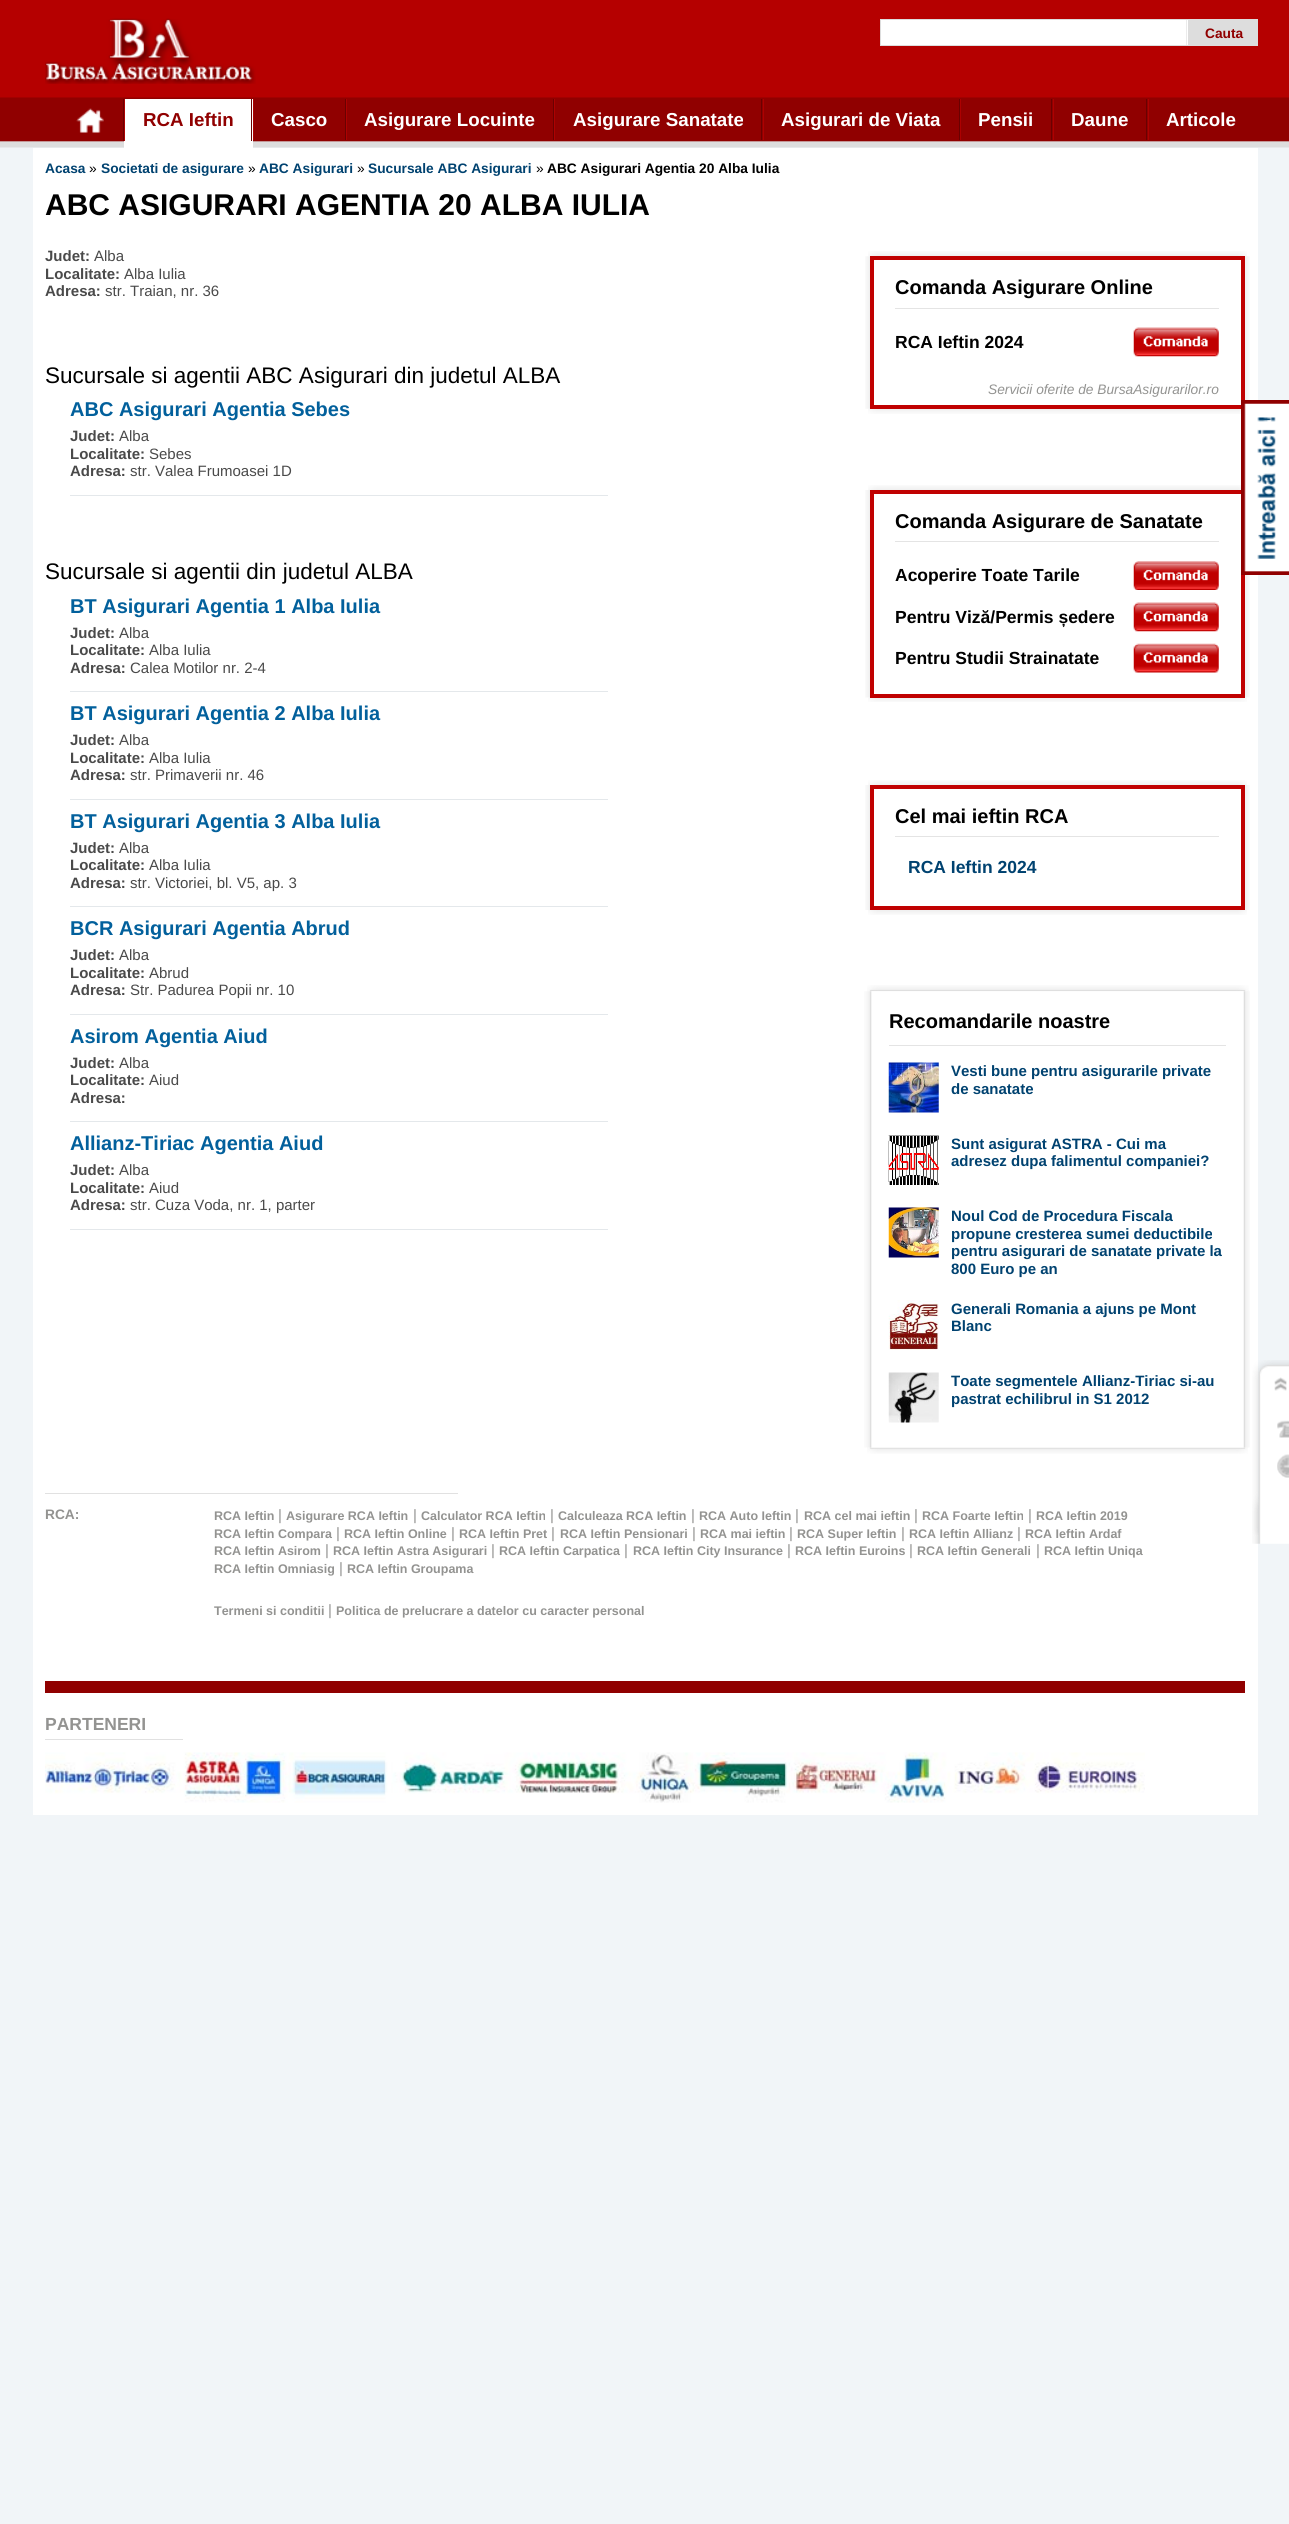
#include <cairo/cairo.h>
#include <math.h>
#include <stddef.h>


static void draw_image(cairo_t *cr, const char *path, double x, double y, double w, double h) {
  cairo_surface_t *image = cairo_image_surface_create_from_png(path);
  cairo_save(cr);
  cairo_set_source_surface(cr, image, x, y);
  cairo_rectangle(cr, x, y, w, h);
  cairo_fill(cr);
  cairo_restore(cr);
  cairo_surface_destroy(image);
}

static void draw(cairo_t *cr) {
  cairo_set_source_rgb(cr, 241 / 255.0, 245 / 255.0, 248 / 255.0);
  cairo_paint(cr);
  draw_image(cr, "images/1.png", 0, 0, 1289, 148);
  draw_image(cr, "images/2.png", 45, 18, 211, 66);
  cairo_set_source_rgb(cr, 221 / 255.0, 221 / 255.0, 221 / 255.0);
  cairo_rectangle(cr, 880, 19, 378, 27);
  cairo_fill(cr);
  cairo_set_source_rgb(cr, 1, 1, 1);
  cairo_rectangle(cr, 881, 20, 307, 25);
  cairo_fill(cr);
  cairo_set_source_rgb(cr, 235 / 255.0, 235 / 255.0, 235 / 255.0);
  cairo_rectangle(cr, 1186, 20, 1, 25);
  cairo_fill(cr);
  cairo_set_source_rgb(cr, 105 / 255.0, 1 / 255.0, 1 / 255.0);
  cairo_rectangle(cr, 123, 99, 1, 42);
  cairo_fill(cr);
  draw_image(cr, "images/3.png", 76, 108, 28, 25);
  cairo_set_source_rgb(cr, 1, 1, 1);
  cairo_rectangle(cr, 124, 99, 129, 49);
  cairo_fill(cr);
  cairo_set_source_rgb(cr, 105 / 255.0, 1 / 255.0, 1 / 255.0);
  cairo_rectangle(cr, 251, 99, 1, 42);
  cairo_fill(cr);
  cairo_set_source_rgb(cr, 173 / 255.0, 1 / 255.0, 1 / 255.0);
  cairo_rectangle(cr, 124, 99, 1, 42);
  cairo_fill(cr);
  cairo_set_source_rgb(cr, 105 / 255.0, 1 / 255.0, 1 / 255.0);
  cairo_rectangle(cr, 345, 99, 1, 41);
  cairo_fill(cr);
  cairo_set_source_rgb(cr, 173 / 255.0, 1 / 255.0, 1 / 255.0);
  cairo_rectangle(cr, 253, 99, 1, 41);
  cairo_fill(cr);
  cairo_set_source_rgb(cr, 105 / 255.0, 1 / 255.0, 1 / 255.0);
  cairo_rectangle(cr, 553, 99, 1, 41);
  cairo_fill(cr);
  cairo_set_source_rgb(cr, 173 / 255.0, 1 / 255.0, 1 / 255.0);
  cairo_rectangle(cr, 346, 99, 1, 41);
  cairo_fill(cr);
  cairo_set_source_rgb(cr, 105 / 255.0, 1 / 255.0, 1 / 255.0);
  cairo_rectangle(cr, 761, 99, 1, 41);
  cairo_fill(cr);
  cairo_set_source_rgb(cr, 173 / 255.0, 1 / 255.0, 1 / 255.0);
  cairo_rectangle(cr, 554, 99, 1, 41);
  cairo_fill(cr);
  cairo_set_source_rgb(cr, 105 / 255.0, 1 / 255.0, 1 / 255.0);
  cairo_rectangle(cr, 959, 99, 1, 41);
  cairo_fill(cr);
  cairo_set_source_rgb(cr, 173 / 255.0, 1 / 255.0, 1 / 255.0);
  cairo_rectangle(cr, 763, 99, 1, 41);
  cairo_fill(cr);
  cairo_set_source_rgb(cr, 105 / 255.0, 1 / 255.0, 1 / 255.0);
  cairo_rectangle(cr, 1051, 99, 1, 41);
  cairo_fill(cr);
  cairo_set_source_rgb(cr, 173 / 255.0, 1 / 255.0, 1 / 255.0);
  cairo_rectangle(cr, 960, 99, 1, 41);
  cairo_fill(cr);
  cairo_set_source_rgb(cr, 105 / 255.0, 1 / 255.0, 1 / 255.0);
  cairo_rectangle(cr, 1146, 99, 1, 41);
  cairo_fill(cr);
  cairo_set_source_rgb(cr, 173 / 255.0, 1 / 255.0, 1 / 255.0);
  cairo_rectangle(cr, 1053, 99, 1, 41);
  cairo_fill(cr);
  cairo_rectangle(cr, 1148, 99, 1, 41);
  cairo_fill(cr);
  cairo_set_source_rgb(cr, 1, 1, 1);
  cairo_rectangle(cr, 33, 148, 1225, 1667);
  cairo_fill(cr);
  cairo_set_source_rgb(cr, 228 / 255.0, 232 / 255.0, 235 / 255.0);
  cairo_rectangle(cr, 70, 495, 538, 1);
  cairo_fill(cr);
  cairo_rectangle(cr, 70, 691, 538, 1);
  cairo_fill(cr);
  cairo_rectangle(cr, 70, 799, 538, 1);
  cairo_fill(cr);
  cairo_rectangle(cr, 70, 906, 538, 1);
  cairo_fill(cr);
  cairo_rectangle(cr, 70, 1014, 538, 1);
  cairo_fill(cr);
  cairo_rectangle(cr, 70, 1121, 538, 1);
  cairo_fill(cr);
  cairo_rectangle(cr, 70, 1229, 538, 1);
  cairo_fill(cr);
  draw_image(cr, "images/4.png", 868, 408, 373, 6);
  draw_image(cr, "images/5.png", 868, 251, 379, 6);
  draw_image(cr, "images/6.png", 865, 256, 385, 153);
  cairo_rectangle(cr, 872, 258, 371, 149);
  cairo_set_source_rgb(cr, 192 / 255.0, 0, 0);
  cairo_set_line_width(cr, 4);
  cairo_stroke(cr);
  cairo_set_source_rgb(cr, 228 / 255.0, 228 / 255.0, 228 / 255.0);
  cairo_rectangle(cr, 895, 308, 324, 1);
  cairo_fill(cr);
  draw_image(cr, "images/7.png", 1133, 327, 86, 30);
  draw_image(cr, "images/8.png", 868, 697, 379, 5);
  draw_image(cr, "images/9.png", 868, 485, 373, 5);
  draw_image(cr, "images/10.png", 865, 490, 385, 208);
  cairo_rectangle(cr, 872, 492, 371, 204);
  cairo_set_source_rgb(cr, 192 / 255.0, 0, 0);
  cairo_stroke(cr);
  cairo_set_source_rgb(cr, 228 / 255.0, 228 / 255.0, 228 / 255.0);
  cairo_rectangle(cr, 895, 541, 324, 1);
  cairo_fill(cr);
  draw_image(cr, "images/11.png", 1133, 561, 86, 29);
  draw_image(cr, "images/7.png", 1133, 602, 86, 30);
  draw_image(cr, "images/12.png", 1133, 643, 86, 30);
  draw_image(cr, "images/13.png", 868, 910, 379, 5);
  draw_image(cr, "images/14.png", 868, 780, 379, 5);
  draw_image(cr, "images/15.png", 865, 785, 385, 125);
  cairo_rectangle(cr, 872, 787, 371, 121);
  cairo_set_source_rgb(cr, 192 / 255.0, 0, 0);
  cairo_stroke(cr);
  cairo_set_source_rgb(cr, 228 / 255.0, 228 / 255.0, 228 / 255.0);
  cairo_rectangle(cr, 895, 836, 324, 1);
  cairo_fill(cr);
  draw_image(cr, "images/16.png", 867, 1447, 381, 7);
  draw_image(cr, "images/17.png", 867, 985, 382, 7);
  draw_image(cr, "images/18.png", 864, 991, 386, 457);
  cairo_rectangle(cr, 889, 1045, 337, 1);
  cairo_fill(cr);
  draw_image(cr, "images/19.png", 888, 1062, 51, 51);
  draw_image(cr, "images/20.png", 888, 1135, 51, 50);
  draw_image(cr, "images/21.png", 888, 1207, 51, 51);
  draw_image(cr, "images/22.png", 888, 1300, 51, 50);
  draw_image(cr, "images/23.png", 888, 1372, 51, 51);
  cairo_set_source_rgb(cr, 225 / 255.0, 225 / 255.0, 225 / 255.0);
  cairo_rectangle(cr, 45, 1493, 413, 1);
  cairo_fill(cr);
  cairo_set_source_rgb(cr, 144 / 255.0, 0, 0);
  cairo_rectangle(cr, 45, 1681, 1200, 12);
  cairo_fill(cr);
  cairo_set_source_rgb(cr, 225 / 255.0, 225 / 255.0, 225 / 255.0);
  cairo_rectangle(cr, 45, 1739, 138, 1);
  cairo_fill(cr);
  draw_image(cr, "images/24.png", 45, 1752, 1100, 51);
  draw_image(cr, "images/25.png", 1241, 400, 48, 175);
  draw_image(cr, "images/26.png", 1252, 1360, 37, 184);
  draw_image(cr, "images/27.png", 1274, 1377, 13, 14);
  draw_image(cr, "images/28.png", 1277, 1420, 12, 18);
  draw_image(cr, "images/29.png", 1277, 1454, 12, 24);
  cairo_select_font_face(cr, "Liberation Sans", CAIRO_FONT_SLANT_NORMAL, CAIRO_FONT_WEIGHT_BOLD);
  cairo_set_font_size(cr, 13.75);
  cairo_set_source_rgb(cr, 144 / 255.0, 0, 0);
  cairo_move_to(cr, 1205, 38);
  cairo_show_text(cr, "Cauta");
  cairo_set_font_size(cr, 18.75);
  cairo_move_to(cr, 143, 126);
  cairo_show_text(cr, "RCA Ieftin");
  cairo_set_source_rgb(cr, 1, 1, 1);
  cairo_move_to(cr, 271, 126);
  cairo_show_text(cr, "Casco");
  cairo_move_to(cr, 364, 126);
  cairo_show_text(cr, "Asigurare Locuinte");
  cairo_move_to(cr, 573, 126);
  cairo_show_text(cr, "Asigurare Sanatate");
  cairo_move_to(cr, 781, 126);
  cairo_show_text(cr, "Asigurari de Viata");
  cairo_move_to(cr, 978, 126);
  cairo_show_text(cr, "Pensii");
  cairo_move_to(cr, 1071, 126);
  cairo_show_text(cr, "Daune");
  cairo_move_to(cr, 1166, 126);
  cairo_show_text(cr, "Articole");
  cairo_set_font_size(cr, 13.75);
  cairo_set_source_rgb(cr, 0, 66 / 255.0, 112 / 255.0);
  cairo_move_to(cr, 45, 173);
  cairo_show_text(cr, "Acasa");
  cairo_select_font_face(cr, "Liberation Sans", CAIRO_FONT_SLANT_NORMAL, CAIRO_FONT_WEIGHT_NORMAL);
  cairo_set_source_rgb(cr, 0, 0, 0);
  cairo_move_to(cr, 89, 173);
  cairo_show_text(cr, "»");
  cairo_select_font_face(cr, "Liberation Sans", CAIRO_FONT_SLANT_NORMAL, CAIRO_FONT_WEIGHT_BOLD);
  cairo_set_source_rgb(cr, 0, 66 / 255.0, 112 / 255.0);
  cairo_move_to(cr, 101, 173);
  cairo_show_text(cr, "Societati de asigurare");
  cairo_select_font_face(cr, "Liberation Sans", CAIRO_FONT_SLANT_NORMAL, CAIRO_FONT_WEIGHT_NORMAL);
  cairo_set_source_rgb(cr, 0, 0, 0);
  cairo_move_to(cr, 248, 173);
  cairo_show_text(cr, "»");
  cairo_select_font_face(cr, "Liberation Sans", CAIRO_FONT_SLANT_NORMAL, CAIRO_FONT_WEIGHT_BOLD);
  cairo_set_source_rgb(cr, 0, 66 / 255.0, 112 / 255.0);
  cairo_move_to(cr, 259, 173);
  cairo_show_text(cr, "ABC Asigurari");
  cairo_select_font_face(cr, "Liberation Sans", CAIRO_FONT_SLANT_NORMAL, CAIRO_FONT_WEIGHT_NORMAL);
  cairo_set_source_rgb(cr, 0, 0, 0);
  cairo_move_to(cr, 357, 173);
  cairo_show_text(cr, "»");
  cairo_select_font_face(cr, "Liberation Sans", CAIRO_FONT_SLANT_NORMAL, CAIRO_FONT_WEIGHT_BOLD);
  cairo_set_source_rgb(cr, 0, 66 / 255.0, 112 / 255.0);
  cairo_move_to(cr, 368, 173);
  cairo_show_text(cr, "Sucursale ABC Asigurari");
  cairo_select_font_face(cr, "Liberation Sans", CAIRO_FONT_SLANT_NORMAL, CAIRO_FONT_WEIGHT_NORMAL);
  cairo_set_source_rgb(cr, 0, 0, 0);
  cairo_move_to(cr, 536, 173);
  cairo_show_text(cr, "»");
  cairo_select_font_face(cr, "Liberation Sans", CAIRO_FONT_SLANT_NORMAL, CAIRO_FONT_WEIGHT_BOLD);
  cairo_move_to(cr, 547, 173);
  cairo_show_text(cr, "ABC Asigurari Agentia 20 Alba Iulia");
  cairo_set_font_size(cr, 30);
  cairo_move_to(cr, 45, 215);
  cairo_show_text(cr, "ABC ASIGURARI AGENTIA 20 ALBA IULIA");
  cairo_set_font_size(cr, 15);
  cairo_set_source_rgb(cr, 74 / 255.0, 74 / 255.0, 74 / 255.0);
  cairo_move_to(cr, 45, 261);
  cairo_show_text(cr, "Judet:");
  cairo_select_font_face(cr, "Liberation Sans", CAIRO_FONT_SLANT_NORMAL, CAIRO_FONT_WEIGHT_NORMAL);
  cairo_move_to(cr, 94, 261);
  cairo_show_text(cr, "Alba");
  cairo_select_font_face(cr, "Liberation Sans", CAIRO_FONT_SLANT_NORMAL, CAIRO_FONT_WEIGHT_BOLD);
  cairo_move_to(cr, 45, 279);
  cairo_show_text(cr, "Localitate:");
  cairo_select_font_face(cr, "Liberation Sans", CAIRO_FONT_SLANT_NORMAL, CAIRO_FONT_WEIGHT_NORMAL);
  cairo_move_to(cr, 124, 279);
  cairo_show_text(cr, "Alba Iulia");
  cairo_select_font_face(cr, "Liberation Sans", CAIRO_FONT_SLANT_NORMAL, CAIRO_FONT_WEIGHT_BOLD);
  cairo_move_to(cr, 45, 296);
  cairo_show_text(cr, "Adresa:");
  cairo_select_font_face(cr, "Liberation Sans", CAIRO_FONT_SLANT_NORMAL, CAIRO_FONT_WEIGHT_NORMAL);
  cairo_move_to(cr, 105, 296);
  cairo_show_text(cr, "str. Traian, nr. 36");
  cairo_set_font_size(cr, 22.5);
  cairo_set_source_rgb(cr, 0, 0, 0);
  cairo_move_to(cr, 45, 383);
  cairo_show_text(cr, "Sucursale si agentii ABC Asigurari din judetul ALBA");
  cairo_select_font_face(cr, "Liberation Sans", CAIRO_FONT_SLANT_NORMAL, CAIRO_FONT_WEIGHT_BOLD);
  cairo_set_font_size(cr, 20);
  cairo_set_source_rgb(cr, 2 / 255.0, 96 / 255.0, 156 / 255.0);
  cairo_move_to(cr, 70, 416);
  cairo_show_text(cr, "ABC Asigurari Agentia Sebes");
  cairo_set_font_size(cr, 15);
  cairo_set_source_rgb(cr, 74 / 255.0, 74 / 255.0, 74 / 255.0);
  cairo_move_to(cr, 70, 441);
  cairo_show_text(cr, "Judet:");
  cairo_select_font_face(cr, "Liberation Sans", CAIRO_FONT_SLANT_NORMAL, CAIRO_FONT_WEIGHT_NORMAL);
  cairo_move_to(cr, 119, 441);
  cairo_show_text(cr, "Alba");
  cairo_select_font_face(cr, "Liberation Sans", CAIRO_FONT_SLANT_NORMAL, CAIRO_FONT_WEIGHT_BOLD);
  cairo_move_to(cr, 70, 459);
  cairo_show_text(cr, "Localitate:");
  cairo_select_font_face(cr, "Liberation Sans", CAIRO_FONT_SLANT_NORMAL, CAIRO_FONT_WEIGHT_NORMAL);
  cairo_move_to(cr, 149, 459);
  cairo_show_text(cr, "Sebes");
  cairo_select_font_face(cr, "Liberation Sans", CAIRO_FONT_SLANT_NORMAL, CAIRO_FONT_WEIGHT_BOLD);
  cairo_move_to(cr, 70, 476);
  cairo_show_text(cr, "Adresa:");
  cairo_select_font_face(cr, "Liberation Sans", CAIRO_FONT_SLANT_NORMAL, CAIRO_FONT_WEIGHT_NORMAL);
  cairo_move_to(cr, 130, 476);
  cairo_show_text(cr, "str. Valea Frumoasei 1D");
  cairo_set_font_size(cr, 22.5);
  cairo_set_source_rgb(cr, 0, 0, 0);
  cairo_move_to(cr, 45, 579);
  cairo_show_text(cr, "Sucursale si agentii din judetul ALBA");
  cairo_select_font_face(cr, "Liberation Sans", CAIRO_FONT_SLANT_NORMAL, CAIRO_FONT_WEIGHT_BOLD);
  cairo_set_font_size(cr, 20);
  cairo_set_source_rgb(cr, 2 / 255.0, 96 / 255.0, 156 / 255.0);
  cairo_move_to(cr, 70, 613);
  cairo_show_text(cr, "BT Asigurari Agentia 1 Alba Iulia");
  cairo_set_font_size(cr, 15);
  cairo_set_source_rgb(cr, 74 / 255.0, 74 / 255.0, 74 / 255.0);
  cairo_move_to(cr, 70, 638);
  cairo_show_text(cr, "Judet:");
  cairo_select_font_face(cr, "Liberation Sans", CAIRO_FONT_SLANT_NORMAL, CAIRO_FONT_WEIGHT_NORMAL);
  cairo_move_to(cr, 119, 638);
  cairo_show_text(cr, "Alba");
  cairo_select_font_face(cr, "Liberation Sans", CAIRO_FONT_SLANT_NORMAL, CAIRO_FONT_WEIGHT_BOLD);
  cairo_move_to(cr, 70, 655);
  cairo_show_text(cr, "Localitate:");
  cairo_select_font_face(cr, "Liberation Sans", CAIRO_FONT_SLANT_NORMAL, CAIRO_FONT_WEIGHT_NORMAL);
  cairo_move_to(cr, 149, 655);
  cairo_show_text(cr, "Alba Iulia");
  cairo_select_font_face(cr, "Liberation Sans", CAIRO_FONT_SLANT_NORMAL, CAIRO_FONT_WEIGHT_BOLD);
  cairo_move_to(cr, 70, 673);
  cairo_show_text(cr, "Adresa:");
  cairo_select_font_face(cr, "Liberation Sans", CAIRO_FONT_SLANT_NORMAL, CAIRO_FONT_WEIGHT_NORMAL);
  cairo_move_to(cr, 130, 673);
  cairo_show_text(cr, "Calea Motilor nr. 2-4");
  cairo_select_font_face(cr, "Liberation Sans", CAIRO_FONT_SLANT_NORMAL, CAIRO_FONT_WEIGHT_BOLD);
  cairo_set_font_size(cr, 20);
  cairo_set_source_rgb(cr, 2 / 255.0, 96 / 255.0, 156 / 255.0);
  cairo_move_to(cr, 70, 720);
  cairo_show_text(cr, "BT Asigurari Agentia 2 Alba Iulia");
  cairo_set_font_size(cr, 15);
  cairo_set_source_rgb(cr, 74 / 255.0, 74 / 255.0, 74 / 255.0);
  cairo_move_to(cr, 70, 745);
  cairo_show_text(cr, "Judet:");
  cairo_select_font_face(cr, "Liberation Sans", CAIRO_FONT_SLANT_NORMAL, CAIRO_FONT_WEIGHT_NORMAL);
  cairo_move_to(cr, 119, 745);
  cairo_show_text(cr, "Alba");
  cairo_select_font_face(cr, "Liberation Sans", CAIRO_FONT_SLANT_NORMAL, CAIRO_FONT_WEIGHT_BOLD);
  cairo_move_to(cr, 70, 763);
  cairo_show_text(cr, "Localitate:");
  cairo_select_font_face(cr, "Liberation Sans", CAIRO_FONT_SLANT_NORMAL, CAIRO_FONT_WEIGHT_NORMAL);
  cairo_move_to(cr, 149, 763);
  cairo_show_text(cr, "Alba Iulia");
  cairo_select_font_face(cr, "Liberation Sans", CAIRO_FONT_SLANT_NORMAL, CAIRO_FONT_WEIGHT_BOLD);
  cairo_move_to(cr, 70, 780);
  cairo_show_text(cr, "Adresa:");
  cairo_select_font_face(cr, "Liberation Sans", CAIRO_FONT_SLANT_NORMAL, CAIRO_FONT_WEIGHT_NORMAL);
  cairo_move_to(cr, 130, 780);
  cairo_show_text(cr, "str. Primaverii nr. 46");
  cairo_select_font_face(cr, "Liberation Sans", CAIRO_FONT_SLANT_NORMAL, CAIRO_FONT_WEIGHT_BOLD);
  cairo_set_font_size(cr, 20);
  cairo_set_source_rgb(cr, 2 / 255.0, 96 / 255.0, 156 / 255.0);
  cairo_move_to(cr, 70, 828);
  cairo_show_text(cr, "BT Asigurari Agentia 3 Alba Iulia");
  cairo_set_font_size(cr, 15);
  cairo_set_source_rgb(cr, 74 / 255.0, 74 / 255.0, 74 / 255.0);
  cairo_move_to(cr, 70, 853);
  cairo_show_text(cr, "Judet:");
  cairo_select_font_face(cr, "Liberation Sans", CAIRO_FONT_SLANT_NORMAL, CAIRO_FONT_WEIGHT_NORMAL);
  cairo_move_to(cr, 119, 853);
  cairo_show_text(cr, "Alba");
  cairo_select_font_face(cr, "Liberation Sans", CAIRO_FONT_SLANT_NORMAL, CAIRO_FONT_WEIGHT_BOLD);
  cairo_move_to(cr, 70, 870);
  cairo_show_text(cr, "Localitate:");
  cairo_select_font_face(cr, "Liberation Sans", CAIRO_FONT_SLANT_NORMAL, CAIRO_FONT_WEIGHT_NORMAL);
  cairo_move_to(cr, 149, 870);
  cairo_show_text(cr, "Alba Iulia");
  cairo_select_font_face(cr, "Liberation Sans", CAIRO_FONT_SLANT_NORMAL, CAIRO_FONT_WEIGHT_BOLD);
  cairo_move_to(cr, 70, 888);
  cairo_show_text(cr, "Adresa:");
  cairo_select_font_face(cr, "Liberation Sans", CAIRO_FONT_SLANT_NORMAL, CAIRO_FONT_WEIGHT_NORMAL);
  cairo_move_to(cr, 130, 888);
  cairo_show_text(cr, "str. Victoriei, bl. V5, ap. 3");
  cairo_select_font_face(cr, "Liberation Sans", CAIRO_FONT_SLANT_NORMAL, CAIRO_FONT_WEIGHT_BOLD);
  cairo_set_font_size(cr, 20);
  cairo_set_source_rgb(cr, 2 / 255.0, 96 / 255.0, 156 / 255.0);
  cairo_move_to(cr, 70, 935);
  cairo_show_text(cr, "BCR Asigurari Agentia Abrud");
  cairo_set_font_size(cr, 15);
  cairo_set_source_rgb(cr, 74 / 255.0, 74 / 255.0, 74 / 255.0);
  cairo_move_to(cr, 70, 960);
  cairo_show_text(cr, "Judet:");
  cairo_select_font_face(cr, "Liberation Sans", CAIRO_FONT_SLANT_NORMAL, CAIRO_FONT_WEIGHT_NORMAL);
  cairo_move_to(cr, 119, 960);
  cairo_show_text(cr, "Alba");
  cairo_select_font_face(cr, "Liberation Sans", CAIRO_FONT_SLANT_NORMAL, CAIRO_FONT_WEIGHT_BOLD);
  cairo_move_to(cr, 70, 978);
  cairo_show_text(cr, "Localitate:");
  cairo_select_font_face(cr, "Liberation Sans", CAIRO_FONT_SLANT_NORMAL, CAIRO_FONT_WEIGHT_NORMAL);
  cairo_move_to(cr, 149, 978);
  cairo_show_text(cr, "Abrud");
  cairo_select_font_face(cr, "Liberation Sans", CAIRO_FONT_SLANT_NORMAL, CAIRO_FONT_WEIGHT_BOLD);
  cairo_move_to(cr, 70, 995);
  cairo_show_text(cr, "Adresa:");
  cairo_select_font_face(cr, "Liberation Sans", CAIRO_FONT_SLANT_NORMAL, CAIRO_FONT_WEIGHT_NORMAL);
  cairo_move_to(cr, 130, 995);
  cairo_show_text(cr, "Str. Padurea Popii nr. 10");
  cairo_select_font_face(cr, "Liberation Sans", CAIRO_FONT_SLANT_NORMAL, CAIRO_FONT_WEIGHT_BOLD);
  cairo_set_font_size(cr, 20);
  cairo_set_source_rgb(cr, 2 / 255.0, 96 / 255.0, 156 / 255.0);
  cairo_move_to(cr, 70, 1043);
  cairo_show_text(cr, "Asirom Agentia Aiud");
  cairo_set_font_size(cr, 15);
  cairo_set_source_rgb(cr, 74 / 255.0, 74 / 255.0, 74 / 255.0);
  cairo_move_to(cr, 70, 1068);
  cairo_show_text(cr, "Judet:");
  cairo_select_font_face(cr, "Liberation Sans", CAIRO_FONT_SLANT_NORMAL, CAIRO_FONT_WEIGHT_NORMAL);
  cairo_move_to(cr, 119, 1068);
  cairo_show_text(cr, "Alba");
  cairo_select_font_face(cr, "Liberation Sans", CAIRO_FONT_SLANT_NORMAL, CAIRO_FONT_WEIGHT_BOLD);
  cairo_move_to(cr, 70, 1085);
  cairo_show_text(cr, "Localitate:");
  cairo_select_font_face(cr, "Liberation Sans", CAIRO_FONT_SLANT_NORMAL, CAIRO_FONT_WEIGHT_NORMAL);
  cairo_move_to(cr, 149, 1085);
  cairo_show_text(cr, "Aiud");
  cairo_select_font_face(cr, "Liberation Sans", CAIRO_FONT_SLANT_NORMAL, CAIRO_FONT_WEIGHT_BOLD);
  cairo_move_to(cr, 70, 1103);
  cairo_show_text(cr, "Adresa:");
  cairo_set_font_size(cr, 20);
  cairo_set_source_rgb(cr, 2 / 255.0, 96 / 255.0, 156 / 255.0);
  cairo_move_to(cr, 70, 1150);
  cairo_show_text(cr, "Allianz-Tiriac Agentia Aiud");
  cairo_set_font_size(cr, 15);
  cairo_set_source_rgb(cr, 74 / 255.0, 74 / 255.0, 74 / 255.0);
  cairo_move_to(cr, 70, 1175);
  cairo_show_text(cr, "Judet:");
  cairo_select_font_face(cr, "Liberation Sans", CAIRO_FONT_SLANT_NORMAL, CAIRO_FONT_WEIGHT_NORMAL);
  cairo_move_to(cr, 119, 1175);
  cairo_show_text(cr, "Alba");
  cairo_select_font_face(cr, "Liberation Sans", CAIRO_FONT_SLANT_NORMAL, CAIRO_FONT_WEIGHT_BOLD);
  cairo_move_to(cr, 70, 1193);
  cairo_show_text(cr, "Localitate:");
  cairo_select_font_face(cr, "Liberation Sans", CAIRO_FONT_SLANT_NORMAL, CAIRO_FONT_WEIGHT_NORMAL);
  cairo_move_to(cr, 149, 1193);
  cairo_show_text(cr, "Aiud");
  cairo_select_font_face(cr, "Liberation Sans", CAIRO_FONT_SLANT_NORMAL, CAIRO_FONT_WEIGHT_BOLD);
  cairo_move_to(cr, 70, 1210);
  cairo_show_text(cr, "Adresa:");
  cairo_select_font_face(cr, "Liberation Sans", CAIRO_FONT_SLANT_NORMAL, CAIRO_FONT_WEIGHT_NORMAL);
  cairo_move_to(cr, 130, 1210);
  cairo_show_text(cr, "str. Cuza Voda, nr. 1, parter");
  cairo_select_font_face(cr, "Liberation Sans", CAIRO_FONT_SLANT_NORMAL, CAIRO_FONT_WEIGHT_BOLD);
  cairo_set_font_size(cr, 20);
  cairo_set_source_rgb(cr, 0, 0, 0);
  cairo_move_to(cr, 895, 294);
  cairo_show_text(cr, "Comanda Asigurare Online");
  cairo_set_font_size(cr, 17.5);
  cairo_move_to(cr, 895, 348);
  cairo_show_text(cr, "RCA Ieftin 2024");
  cairo_select_font_face(cr, "Liberation Sans", CAIRO_FONT_SLANT_ITALIC, CAIRO_FONT_WEIGHT_NORMAL);
  cairo_set_font_size(cr, 13.75);
  cairo_set_source_rgb(cr, 147 / 255.0, 147 / 255.0, 145 / 255.0);
  cairo_move_to(cr, 988, 394);
  cairo_show_text(cr, "Servicii oferite de BursaAsigurarilor.ro");
  cairo_select_font_face(cr, "Liberation Sans", CAIRO_FONT_SLANT_NORMAL, CAIRO_FONT_WEIGHT_BOLD);
  cairo_set_font_size(cr, 20);
  cairo_set_source_rgb(cr, 0, 0, 0);
  cairo_move_to(cr, 895, 528);
  cairo_show_text(cr, "Comanda Asigurare de Sanatate");
  cairo_set_font_size(cr, 17.5);
  cairo_move_to(cr, 895, 581);
  cairo_show_text(cr, "Acoperire Toate Tarile");
  cairo_move_to(cr, 895, 623);
  cairo_show_text(cr, "Pentru Viză/Permis ședere");
  cairo_move_to(cr, 895, 664);
  cairo_show_text(cr, "Pentru Studii Strainatate");
  cairo_set_font_size(cr, 20);
  cairo_move_to(cr, 895, 823);
  cairo_show_text(cr, "Cel mai ieftin RCA");
  cairo_set_font_size(cr, 17.5);
  cairo_set_source_rgb(cr, 0, 66 / 255.0, 112 / 255.0);
  cairo_move_to(cr, 908, 873);
  cairo_show_text(cr, "RCA Ieftin 2024");
  cairo_set_font_size(cr, 20);
  cairo_set_source_rgb(cr, 0, 0, 0);
  cairo_move_to(cr, 889, 1028);
  cairo_show_text(cr, "Recomandarile noastre");
  cairo_set_font_size(cr, 15);
  cairo_set_source_rgb(cr, 0, 66 / 255.0, 112 / 255.0);
  cairo_move_to(cr, 951, 1076);
  cairo_show_text(cr, "Vesti bune pentru asigurarile private");
  cairo_move_to(cr, 951, 1094);
  cairo_show_text(cr, "de sanatate");
  cairo_move_to(cr, 951, 1149);
  cairo_show_text(cr, "Sunt asigurat ASTRA - Cui ma");
  cairo_move_to(cr, 951, 1166);
  cairo_show_text(cr, "adresez dupa falimentul companiei?");
  cairo_move_to(cr, 951, 1221);
  cairo_show_text(cr, "Noul Cod de Procedura Fiscala");
  cairo_move_to(cr, 951, 1239);
  cairo_show_text(cr, "propune cresterea sumei deductibile");
  cairo_move_to(cr, 951, 1256);
  cairo_show_text(cr, "pentru asigurari de sanatate private la");
  cairo_move_to(cr, 951, 1274);
  cairo_show_text(cr, "800 Euro pe an");
  cairo_move_to(cr, 951, 1314);
  cairo_show_text(cr, "Generali Romania a ajuns pe Mont");
  cairo_move_to(cr, 951, 1331);
  cairo_show_text(cr, "Blanc");
  cairo_move_to(cr, 951, 1386);
  cairo_show_text(cr, "Toate segmentele Allianz-Tiriac si-au");
  cairo_move_to(cr, 951, 1404);
  cairo_show_text(cr, "pastrat echilibrul in S1 2012");
  cairo_set_font_size(cr, 13.75);
  cairo_set_source_rgb(cr, 147 / 255.0, 147 / 255.0, 145 / 255.0);
  cairo_move_to(cr, 45, 1519);
  cairo_show_text(cr, "RCA:");
  cairo_set_font_size(cr, 12.5);
  cairo_move_to(cr, 214, 1520);
  cairo_show_text(cr, "RCA Ieftin");
  cairo_select_font_face(cr, "Liberation Sans", CAIRO_FONT_SLANT_NORMAL, CAIRO_FONT_WEIGHT_NORMAL);
  cairo_set_font_size(cr, 15);
  cairo_move_to(cr, 278, 1520);
  cairo_show_text(cr, "|");
  cairo_select_font_face(cr, "Liberation Sans", CAIRO_FONT_SLANT_NORMAL, CAIRO_FONT_WEIGHT_BOLD);
  cairo_set_font_size(cr, 12.5);
  cairo_move_to(cr, 286, 1520);
  cairo_show_text(cr, "Asigurare RCA Ieftin");
  cairo_select_font_face(cr, "Liberation Sans", CAIRO_FONT_SLANT_NORMAL, CAIRO_FONT_WEIGHT_NORMAL);
  cairo_set_font_size(cr, 15);
  cairo_move_to(cr, 413, 1520);
  cairo_show_text(cr, "|");
  cairo_select_font_face(cr, "Liberation Sans", CAIRO_FONT_SLANT_NORMAL, CAIRO_FONT_WEIGHT_BOLD);
  cairo_set_font_size(cr, 12.5);
  cairo_move_to(cr, 421, 1520);
  cairo_show_text(cr, "Calculator RCA Ieftin");
  cairo_select_font_face(cr, "Liberation Sans", CAIRO_FONT_SLANT_NORMAL, CAIRO_FONT_WEIGHT_NORMAL);
  cairo_set_font_size(cr, 15);
  cairo_move_to(cr, 550, 1520);
  cairo_show_text(cr, "|");
  cairo_select_font_face(cr, "Liberation Sans", CAIRO_FONT_SLANT_NORMAL, CAIRO_FONT_WEIGHT_BOLD);
  cairo_set_font_size(cr, 12.5);
  cairo_move_to(cr, 558, 1520);
  cairo_show_text(cr, "Calculeaza RCA Ieftin");
  cairo_select_font_face(cr, "Liberation Sans", CAIRO_FONT_SLANT_NORMAL, CAIRO_FONT_WEIGHT_NORMAL);
  cairo_set_font_size(cr, 15);
  cairo_move_to(cr, 691, 1520);
  cairo_show_text(cr, "|");
  cairo_select_font_face(cr, "Liberation Sans", CAIRO_FONT_SLANT_NORMAL, CAIRO_FONT_WEIGHT_BOLD);
  cairo_set_font_size(cr, 12.5);
  cairo_move_to(cr, 699, 1520);
  cairo_show_text(cr, "RCA Auto Ieftin");
  cairo_select_font_face(cr, "Liberation Sans", CAIRO_FONT_SLANT_NORMAL, CAIRO_FONT_WEIGHT_NORMAL);
  cairo_set_font_size(cr, 15);
  cairo_move_to(cr, 795, 1520);
  cairo_show_text(cr, "|");
  cairo_select_font_face(cr, "Liberation Sans", CAIRO_FONT_SLANT_NORMAL, CAIRO_FONT_WEIGHT_BOLD);
  cairo_set_font_size(cr, 12.5);
  cairo_move_to(cr, 804, 1520);
  cairo_show_text(cr, "RCA cel mai ieftin");
  cairo_select_font_face(cr, "Liberation Sans", CAIRO_FONT_SLANT_NORMAL, CAIRO_FONT_WEIGHT_NORMAL);
  cairo_set_font_size(cr, 15);
  cairo_move_to(cr, 914, 1520);
  cairo_show_text(cr, "|");
  cairo_select_font_face(cr, "Liberation Sans", CAIRO_FONT_SLANT_NORMAL, CAIRO_FONT_WEIGHT_BOLD);
  cairo_set_font_size(cr, 12.5);
  cairo_move_to(cr, 922, 1520);
  cairo_show_text(cr, "RCA Foarte Ieftin");
  cairo_select_font_face(cr, "Liberation Sans", CAIRO_FONT_SLANT_NORMAL, CAIRO_FONT_WEIGHT_NORMAL);
  cairo_set_font_size(cr, 15);
  cairo_move_to(cr, 1028, 1520);
  cairo_show_text(cr, "|");
  cairo_select_font_face(cr, "Liberation Sans", CAIRO_FONT_SLANT_NORMAL, CAIRO_FONT_WEIGHT_BOLD);
  cairo_set_font_size(cr, 12.5);
  cairo_move_to(cr, 1036, 1520);
  cairo_show_text(cr, "RCA Ieftin 2019");
  cairo_move_to(cr, 214, 1538);
  cairo_show_text(cr, "RCA Ieftin Compara");
  cairo_select_font_face(cr, "Liberation Sans", CAIRO_FONT_SLANT_NORMAL, CAIRO_FONT_WEIGHT_NORMAL);
  cairo_set_font_size(cr, 15);
  cairo_move_to(cr, 336, 1538);
  cairo_show_text(cr, "|");
  cairo_select_font_face(cr, "Liberation Sans", CAIRO_FONT_SLANT_NORMAL, CAIRO_FONT_WEIGHT_BOLD);
  cairo_set_font_size(cr, 12.5);
  cairo_move_to(cr, 344, 1538);
  cairo_show_text(cr, "RCA Ieftin Online");
  cairo_select_font_face(cr, "Liberation Sans", CAIRO_FONT_SLANT_NORMAL, CAIRO_FONT_WEIGHT_NORMAL);
  cairo_set_font_size(cr, 15);
  cairo_move_to(cr, 451, 1538);
  cairo_show_text(cr, "|");
  cairo_select_font_face(cr, "Liberation Sans", CAIRO_FONT_SLANT_NORMAL, CAIRO_FONT_WEIGHT_BOLD);
  cairo_set_font_size(cr, 12.5);
  cairo_move_to(cr, 459, 1538);
  cairo_show_text(cr, "RCA Ieftin Pret");
  cairo_select_font_face(cr, "Liberation Sans", CAIRO_FONT_SLANT_NORMAL, CAIRO_FONT_WEIGHT_NORMAL);
  cairo_set_font_size(cr, 15);
  cairo_move_to(cr, 551, 1538);
  cairo_show_text(cr, "|");
  cairo_select_font_face(cr, "Liberation Sans", CAIRO_FONT_SLANT_NORMAL, CAIRO_FONT_WEIGHT_BOLD);
  cairo_set_font_size(cr, 12.5);
  cairo_move_to(cr, 560, 1538);
  cairo_show_text(cr, "RCA Ieftin Pensionari");
  cairo_select_font_face(cr, "Liberation Sans", CAIRO_FONT_SLANT_NORMAL, CAIRO_FONT_WEIGHT_NORMAL);
  cairo_set_font_size(cr, 15);
  cairo_move_to(cr, 692, 1538);
  cairo_show_text(cr, "|");
  cairo_select_font_face(cr, "Liberation Sans", CAIRO_FONT_SLANT_NORMAL, CAIRO_FONT_WEIGHT_BOLD);
  cairo_set_font_size(cr, 12.5);
  cairo_move_to(cr, 700, 1538);
  cairo_show_text(cr, "RCA mai ieftin");
  cairo_select_font_face(cr, "Liberation Sans", CAIRO_FONT_SLANT_NORMAL, CAIRO_FONT_WEIGHT_NORMAL);
  cairo_set_font_size(cr, 15);
  cairo_move_to(cr, 789, 1538);
  cairo_show_text(cr, "|");
  cairo_select_font_face(cr, "Liberation Sans", CAIRO_FONT_SLANT_NORMAL, CAIRO_FONT_WEIGHT_BOLD);
  cairo_set_font_size(cr, 12.5);
  cairo_move_to(cr, 797, 1538);
  cairo_show_text(cr, "RCA Super Ieftin");
  cairo_select_font_face(cr, "Liberation Sans", CAIRO_FONT_SLANT_NORMAL, CAIRO_FONT_WEIGHT_NORMAL);
  cairo_set_font_size(cr, 15);
  cairo_move_to(cr, 901, 1538);
  cairo_show_text(cr, "|");
  cairo_select_font_face(cr, "Liberation Sans", CAIRO_FONT_SLANT_NORMAL, CAIRO_FONT_WEIGHT_BOLD);
  cairo_set_font_size(cr, 12.5);
  cairo_move_to(cr, 909, 1538);
  cairo_show_text(cr, "RCA Ieftin Allianz");
  cairo_select_font_face(cr, "Liberation Sans", CAIRO_FONT_SLANT_NORMAL, CAIRO_FONT_WEIGHT_NORMAL);
  cairo_set_font_size(cr, 15);
  cairo_move_to(cr, 1017, 1538);
  cairo_show_text(cr, "|");
  cairo_select_font_face(cr, "Liberation Sans", CAIRO_FONT_SLANT_NORMAL, CAIRO_FONT_WEIGHT_BOLD);
  cairo_set_font_size(cr, 12.5);
  cairo_move_to(cr, 1025, 1538);
  cairo_show_text(cr, "RCA Ieftin Ardaf");
  cairo_move_to(cr, 214, 1555);
  cairo_show_text(cr, "RCA Ieftin Asirom");
  cairo_select_font_face(cr, "Liberation Sans", CAIRO_FONT_SLANT_NORMAL, CAIRO_FONT_WEIGHT_NORMAL);
  cairo_set_font_size(cr, 15);
  cairo_move_to(cr, 325, 1555);
  cairo_show_text(cr, "|");
  cairo_select_font_face(cr, "Liberation Sans", CAIRO_FONT_SLANT_NORMAL, CAIRO_FONT_WEIGHT_BOLD);
  cairo_set_font_size(cr, 12.5);
  cairo_move_to(cr, 333, 1555);
  cairo_show_text(cr, "RCA Ieftin Astra Asigurari");
  cairo_select_font_face(cr, "Liberation Sans", CAIRO_FONT_SLANT_NORMAL, CAIRO_FONT_WEIGHT_NORMAL);
  cairo_set_font_size(cr, 15);
  cairo_move_to(cr, 491, 1555);
  cairo_show_text(cr, "|");
  cairo_select_font_face(cr, "Liberation Sans", CAIRO_FONT_SLANT_NORMAL, CAIRO_FONT_WEIGHT_BOLD);
  cairo_set_font_size(cr, 12.5);
  cairo_move_to(cr, 499, 1555);
  cairo_show_text(cr, "RCA Ieftin Carpatica");
  cairo_select_font_face(cr, "Liberation Sans", CAIRO_FONT_SLANT_NORMAL, CAIRO_FONT_WEIGHT_NORMAL);
  cairo_set_font_size(cr, 15);
  cairo_move_to(cr, 624, 1555);
  cairo_show_text(cr, "|");
  cairo_select_font_face(cr, "Liberation Sans", CAIRO_FONT_SLANT_NORMAL, CAIRO_FONT_WEIGHT_BOLD);
  cairo_set_font_size(cr, 12.5);
  cairo_move_to(cr, 633, 1555);
  cairo_show_text(cr, "RCA Ieftin City Insurance");
  cairo_select_font_face(cr, "Liberation Sans", CAIRO_FONT_SLANT_NORMAL, CAIRO_FONT_WEIGHT_NORMAL);
  cairo_set_font_size(cr, 15);
  cairo_move_to(cr, 787, 1555);
  cairo_show_text(cr, "|");
  cairo_select_font_face(cr, "Liberation Sans", CAIRO_FONT_SLANT_NORMAL, CAIRO_FONT_WEIGHT_BOLD);
  cairo_set_font_size(cr, 12.5);
  cairo_move_to(cr, 795, 1555);
  cairo_show_text(cr, "RCA Ieftin Euroins");
  cairo_select_font_face(cr, "Liberation Sans", CAIRO_FONT_SLANT_NORMAL, CAIRO_FONT_WEIGHT_NORMAL);
  cairo_set_font_size(cr, 15);
  cairo_move_to(cr, 909, 1555);
  cairo_show_text(cr, "|");
  cairo_select_font_face(cr, "Liberation Sans", CAIRO_FONT_SLANT_NORMAL, CAIRO_FONT_WEIGHT_BOLD);
  cairo_set_font_size(cr, 12.5);
  cairo_move_to(cr, 917, 1555);
  cairo_show_text(cr, "RCA Ieftin Generali");
  cairo_select_font_face(cr, "Liberation Sans", CAIRO_FONT_SLANT_NORMAL, CAIRO_FONT_WEIGHT_NORMAL);
  cairo_set_font_size(cr, 15);
  cairo_move_to(cr, 1036, 1555);
  cairo_show_text(cr, "|");
  cairo_select_font_face(cr, "Liberation Sans", CAIRO_FONT_SLANT_NORMAL, CAIRO_FONT_WEIGHT_BOLD);
  cairo_set_font_size(cr, 12.5);
  cairo_move_to(cr, 1044, 1555);
  cairo_show_text(cr, "RCA Ieftin Uniqa");
  cairo_move_to(cr, 214, 1573);
  cairo_show_text(cr, "RCA Ieftin Omniasig");
  cairo_select_font_face(cr, "Liberation Sans", CAIRO_FONT_SLANT_NORMAL, CAIRO_FONT_WEIGHT_NORMAL);
  cairo_set_font_size(cr, 15);
  cairo_move_to(cr, 339, 1573);
  cairo_show_text(cr, "|");
  cairo_select_font_face(cr, "Liberation Sans", CAIRO_FONT_SLANT_NORMAL, CAIRO_FONT_WEIGHT_BOLD);
  cairo_set_font_size(cr, 12.5);
  cairo_move_to(cr, 347, 1573);
  cairo_show_text(cr, "RCA Ieftin Groupama");
  cairo_move_to(cr, 214, 1615);
  cairo_show_text(cr, "Termeni si conditii");
  cairo_select_font_face(cr, "Liberation Sans", CAIRO_FONT_SLANT_NORMAL, CAIRO_FONT_WEIGHT_NORMAL);
  cairo_set_font_size(cr, 15);
  cairo_move_to(cr, 328, 1615);
  cairo_show_text(cr, "|");
  cairo_select_font_face(cr, "Liberation Sans", CAIRO_FONT_SLANT_NORMAL, CAIRO_FONT_WEIGHT_BOLD);
  cairo_set_font_size(cr, 12.5);
  cairo_move_to(cr, 336, 1615);
  cairo_show_text(cr, "Politica de prelucrare a datelor cu caracter personal");
  cairo_set_font_size(cr, 17.5);
  cairo_move_to(cr, 45, 1730);
  cairo_show_text(cr, "PARTENERI");
}

int main(void) {
  cairo_surface_t *surface = cairo_image_surface_create(CAIRO_FORMAT_RGB24, 1289, 2524);
  cairo_t *cr = cairo_create(surface);
  cairo_font_options_t *options = cairo_font_options_create();
  cairo_font_options_set_hint_metrics(options, CAIRO_HINT_METRICS_OFF);
  cairo_font_options_set_hint_style(options, CAIRO_HINT_STYLE_NONE);
  cairo_set_font_options(cr, options);
  cairo_set_miter_limit(cr, 4);
  draw(cr);
  cairo_surface_write_to_png(surface, "out.png");
  cairo_font_options_destroy(options);
  cairo_destroy(cr);
  cairo_surface_destroy(surface);
  return 0;
}
